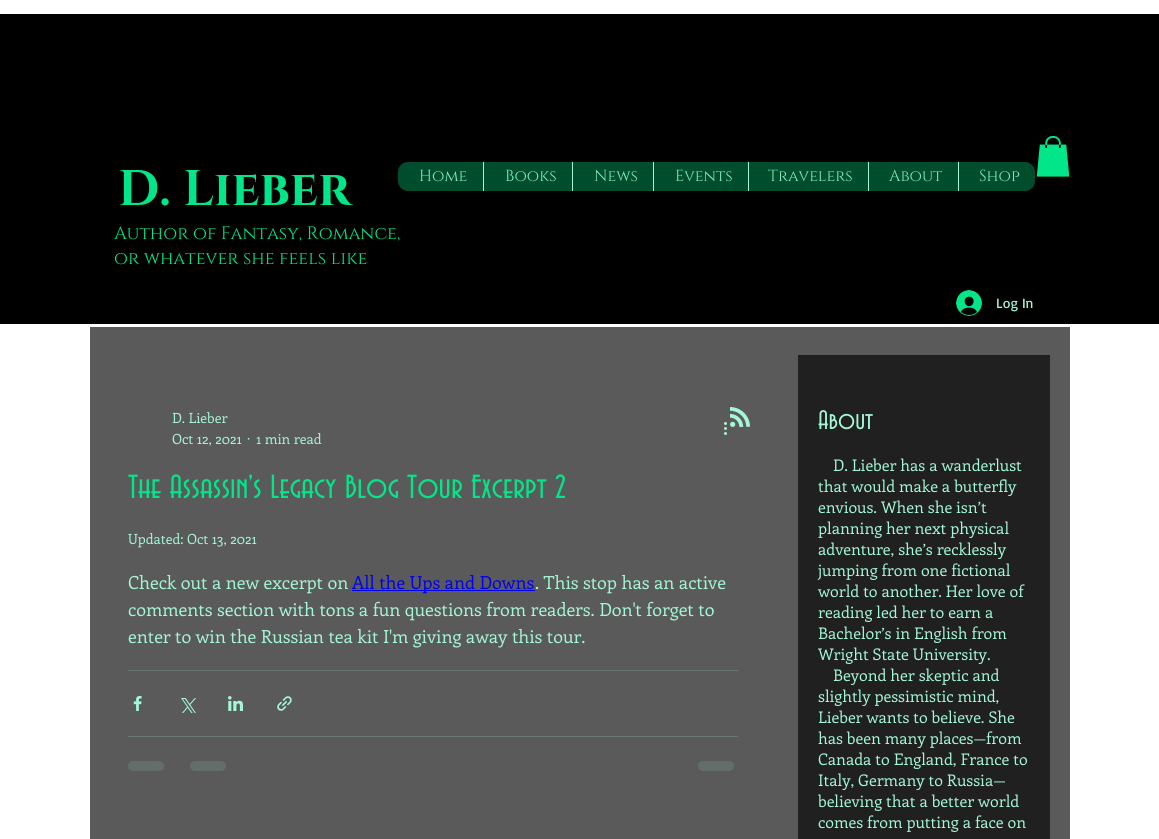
#include <cairo/cairo.h>
#include <math.h>
#include <stddef.h>


static void rounded_rect(cairo_t *cr, double x, double y, double w, double h, double r) {
  cairo_new_sub_path(cr);
  cairo_arc(cr, x + w - r, y + h - r, r, 0, M_PI / 2);
  cairo_arc(cr, x + r, y + h - r, r, M_PI / 2, M_PI);
  cairo_arc(cr, x + r, y + r, r, M_PI, 1.5 * M_PI);
  cairo_arc(cr, x + w - r, y + r, r, 1.5 * M_PI, 2 * M_PI);
  cairo_close_path(cr);
}

static void draw_image(cairo_t *cr, const char *path, double x, double y, double w, double h) {
  cairo_surface_t *image = cairo_image_surface_create_from_png(path);
  cairo_save(cr);
  cairo_set_source_surface(cr, image, x, y);
  cairo_rectangle(cr, x, y, w, h);
  cairo_fill(cr);
  cairo_restore(cr);
  cairo_surface_destroy(image);
}

static void draw(cairo_t *cr) {
  cairo_set_source_rgb(cr, 1, 1, 1);
  cairo_paint(cr);
  cairo_set_source_rgb(cr, 0, 0, 0);
  cairo_rectangle(cr, 0, 14, 1159, 310);
  cairo_fill(cr);
  draw_image(cr, "images/1.png", 1036, 136, 34, 41);
  cairo_set_source_rgb(cr, 0, 77 / 255.0, 46 / 255.0);
  rounded_rect(cr, 398, 162, 637, 29, 10);
  cairo_fill(cr);
  cairo_set_source_rgb(cr, 164 / 255.0, 247 / 255.0, 213 / 255.0);
  cairo_rectangle(cr, 483, 162, 1, 29);
  cairo_fill(cr);
  cairo_rectangle(cr, 572, 162, 1, 29);
  cairo_fill(cr);
  cairo_rectangle(cr, 653, 162, 1, 29);
  cairo_fill(cr);
  cairo_rectangle(cr, 748, 162, 1, 29);
  cairo_fill(cr);
  cairo_rectangle(cr, 868, 162, 1, 29);
  cairo_fill(cr);
  cairo_rectangle(cr, 958, 162, 1, 29);
  cairo_fill(cr);
  draw_image(cr, "images/2.png", 956, 290, 26, 26);
  cairo_set_source_rgb(cr, 90 / 255.0, 90 / 255.0, 90 / 255.0);
  cairo_rectangle(cr, 90, 327, 980, 512);
  cairo_fill(cr);
  draw_image(cr, "images/3.png", 730, 407, 20, 20);
  cairo_set_source_rgb(cr, 32 / 255.0, 32 / 255.0, 32 / 255.0);
  cairo_rectangle(cr, 798, 355, 252, 484);
  cairo_fill(cr);
  draw_image(cr, "images/4.png", 724, 422, 3, 13);
  cairo_set_source_rgb(cr, 0, 0, 238 / 255.0);
  cairo_rectangle(cr, 352, 590, 183, 1);
  cairo_fill(cr);
  cairo_set_source_rgb(cr, 105 / 255.0, 121 / 255.0, 115 / 255.0);
  cairo_rectangle(cr, 128, 670, 610, 1);
  cairo_fill(cr);
  draw_image(cr, "images/5.png", 133, 696, 9, 15);
  draw_image(cr, "images/6.png", 181, 698, 15, 15);
  draw_image(cr, "images/7.png", 228, 696, 15, 15);
  draw_image(cr, "images/8.png", 277, 696, 15, 15);
  cairo_rectangle(cr, 128, 736, 610, 1);
  cairo_fill(cr);
  cairo_set_source_rgb(cr, 99 / 255.0, 109 / 255.0, 105 / 255.0);
  rounded_rect(cr, 128, 761, 36, 10, 5);
  cairo_fill(cr);
  rounded_rect(cr, 190, 761, 36, 10, 5);
  cairo_fill(cr);
  rounded_rect(cr, 698, 761, 36, 10, 5);
  cairo_fill(cr);
  cairo_select_font_face(cr, "Cinzel", CAIRO_FONT_SLANT_NORMAL, CAIRO_FONT_WEIGHT_BOLD);
  cairo_set_font_size(cr, 50);
  cairo_set_source_rgb(cr, 0, 230 / 255.0, 137 / 255.0);
  cairo_move_to(cr, 118, 205);
  cairo_show_text(cr, "D. Lieber");
  cairo_select_font_face(cr, "Cinzel", CAIRO_FONT_SLANT_NORMAL, CAIRO_FONT_WEIGHT_NORMAL);
  cairo_set_font_size(cr, 16);
  cairo_set_source_rgb(cr, 119 / 255.0, 238 / 255.0, 190 / 255.0);
  cairo_move_to(cr, 419, 181);
  cairo_show_text(cr, "Home");
  cairo_move_to(cr, 505, 181);
  cairo_show_text(cr, "Books");
  cairo_move_to(cr, 594, 181);
  cairo_show_text(cr, "News");
  cairo_move_to(cr, 675, 181);
  cairo_show_text(cr, "Events");
  cairo_move_to(cr, 768, 181);
  cairo_show_text(cr, "Travelers");
  cairo_move_to(cr, 889, 181);
  cairo_show_text(cr, "About");
  cairo_move_to(cr, 979, 181);
  cairo_show_text(cr, "Shop");
  cairo_set_font_size(cr, 18);
  cairo_set_source_rgb(cr, 0, 230 / 255.0, 137 / 255.0);
  cairo_move_to(cr, 114, 239);
  cairo_show_text(cr, "Author of Fantasy, Romance,");
  cairo_move_to(cr, 114, 264);
  cairo_show_text(cr, "or whatever she feels like");
  cairo_select_font_face(cr, "Basic", CAIRO_FONT_SLANT_NORMAL, CAIRO_FONT_WEIGHT_NORMAL);
  cairo_set_font_size(cr, 14);
  cairo_set_source_rgb(cr, 164 / 255.0, 247 / 255.0, 213 / 255.0);
  cairo_move_to(cr, 996, 308);
  cairo_show_text(cr, "Log In");
  cairo_select_font_face(cr, "Enriqueta", CAIRO_FONT_SLANT_NORMAL, CAIRO_FONT_WEIGHT_NORMAL);
  cairo_move_to(cr, 172, 423);
  cairo_show_text(cr, "D. Lieber");
  cairo_move_to(cr, 172, 444);
  cairo_show_text(cr, "Oct 12, 2021");
  cairo_move_to(cr, 247, 444);
  cairo_show_text(cr, "·");
  cairo_move_to(cr, 256, 444);
  cairo_show_text(cr, "1 min read");
  cairo_select_font_face(cr, "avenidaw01", CAIRO_FONT_SLANT_NORMAL, CAIRO_FONT_WEIGHT_NORMAL);
  cairo_set_font_size(cr, 35);
  cairo_set_source_rgb(cr, 0, 230 / 255.0, 137 / 255.0);
  cairo_move_to(cr, 128, 498);
  cairo_show_text(cr, "The Assassin's Legacy Blog Tour Excerpt 2");
  cairo_select_font_face(cr, "Enriqueta", CAIRO_FONT_SLANT_NORMAL, CAIRO_FONT_WEIGHT_NORMAL);
  cairo_set_font_size(cr, 14);
  cairo_set_source_rgb(cr, 164 / 255.0, 247 / 255.0, 213 / 255.0);
  cairo_move_to(cr, 128, 544);
  cairo_show_text(cr, "Updated: Oct 13, 2021");
  cairo_set_font_size(cr, 18);
  cairo_move_to(cr, 128, 589);
  cairo_show_text(cr, "Check out a new excerpt on");
  cairo_set_source_rgb(cr, 0, 0, 238 / 255.0);
  cairo_move_to(cr, 352, 589);
  cairo_show_text(cr, "All the Ups and Downs");
  cairo_set_source_rgb(cr, 164 / 255.0, 247 / 255.0, 213 / 255.0);
  cairo_move_to(cr, 535, 589);
  cairo_show_text(cr, ". This stop has an active");
  cairo_move_to(cr, 128, 616);
  cairo_show_text(cr, "comments section with tons a fun questions from readers. Don't forget to");
  cairo_move_to(cr, 128, 643);
  cairo_show_text(cr, "enter to win the Russian tea kit I'm giving away this tour.");
  cairo_select_font_face(cr, "avenidaw01", CAIRO_FONT_SLANT_NORMAL, CAIRO_FONT_WEIGHT_NORMAL);
  cairo_set_font_size(cr, 28);
  cairo_move_to(cr, 818, 429);
  cairo_show_text(cr, "About");
  cairo_select_font_face(cr, "Enriqueta", CAIRO_FONT_SLANT_NORMAL, CAIRO_FONT_WEIGHT_NORMAL);
  cairo_set_font_size(cr, 16);
  cairo_move_to(cr, 833, 471);
  cairo_show_text(cr, "D. Lieber has a wanderlust");
  cairo_move_to(cr, 818, 492);
  cairo_show_text(cr, "that would make a butterfly");
  cairo_move_to(cr, 818, 513);
  cairo_show_text(cr, "envious. When she isn’t");
  cairo_move_to(cr, 818, 534);
  cairo_show_text(cr, "planning her next physical");
  cairo_move_to(cr, 818, 555);
  cairo_show_text(cr, "adventure, she’s recklessly");
  cairo_move_to(cr, 818, 576);
  cairo_show_text(cr, "jumping from one fictional");
  cairo_move_to(cr, 818, 597);
  cairo_show_text(cr, "world to another. Her love of");
  cairo_move_to(cr, 818, 618);
  cairo_show_text(cr, "reading led her to earn a");
  cairo_move_to(cr, 818, 639);
  cairo_show_text(cr, "Bachelor’s in English from");
  cairo_move_to(cr, 818, 660);
  cairo_show_text(cr, "Wright State University.");
  cairo_move_to(cr, 833, 681);
  cairo_show_text(cr, "Beyond her skeptic and");
  cairo_move_to(cr, 818, 702);
  cairo_show_text(cr, "slightly pessimistic mind,");
  cairo_move_to(cr, 818, 723);
  cairo_show_text(cr, "Lieber wants to believe. She");
  cairo_move_to(cr, 818, 744);
  cairo_show_text(cr, "has been many places—from");
  cairo_move_to(cr, 818, 765);
  cairo_show_text(cr, "Canada to England, France to");
  cairo_move_to(cr, 818, 786);
  cairo_show_text(cr, "Italy, Germany to Russia—");
  cairo_move_to(cr, 818, 807);
  cairo_show_text(cr, "believing that a better world");
  cairo_move_to(cr, 818, 828);
  cairo_show_text(cr, "comes from putting a face on");
}

int main(void) {
  cairo_surface_t *surface = cairo_image_surface_create(CAIRO_FORMAT_RGB24, 1159, 839);
  cairo_t *cr = cairo_create(surface);
  cairo_font_options_t *options = cairo_font_options_create();
  cairo_font_options_set_hint_metrics(options, CAIRO_HINT_METRICS_OFF);
  cairo_font_options_set_hint_style(options, CAIRO_HINT_STYLE_NONE);
  cairo_set_font_options(cr, options);
  cairo_set_miter_limit(cr, 4);
  draw(cr);
  cairo_surface_write_to_png(surface, "out.png");
  cairo_font_options_destroy(options);
  cairo_destroy(cr);
  cairo_surface_destroy(surface);
  return 0;
}
